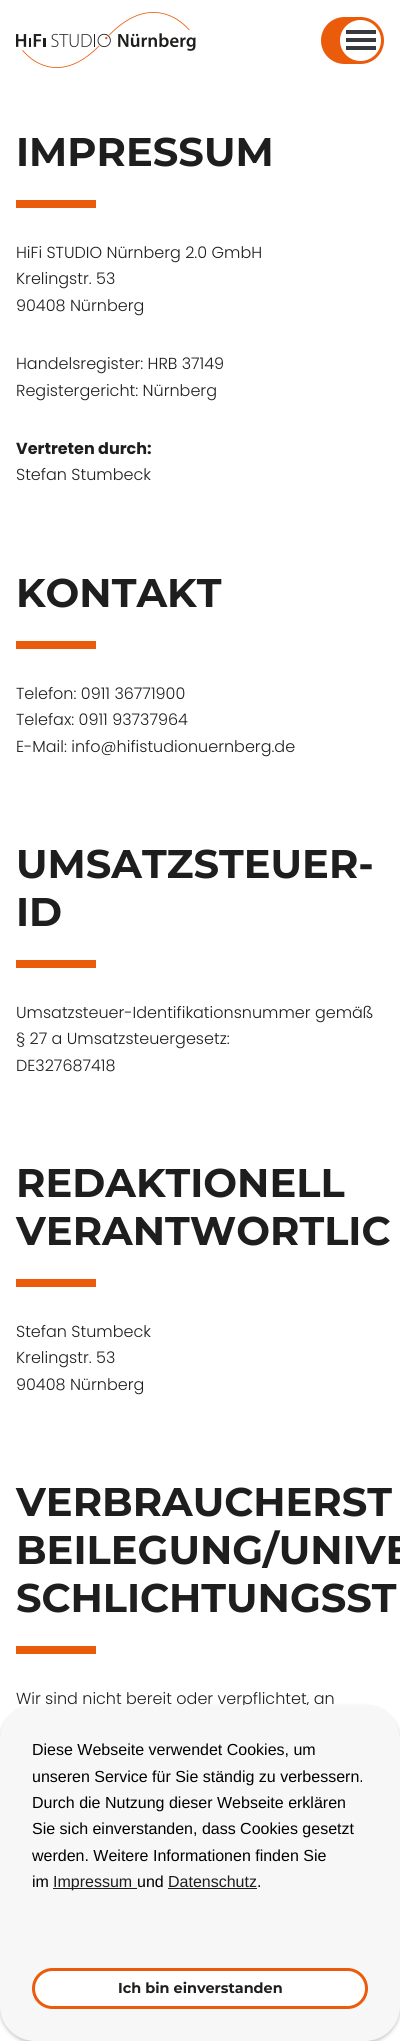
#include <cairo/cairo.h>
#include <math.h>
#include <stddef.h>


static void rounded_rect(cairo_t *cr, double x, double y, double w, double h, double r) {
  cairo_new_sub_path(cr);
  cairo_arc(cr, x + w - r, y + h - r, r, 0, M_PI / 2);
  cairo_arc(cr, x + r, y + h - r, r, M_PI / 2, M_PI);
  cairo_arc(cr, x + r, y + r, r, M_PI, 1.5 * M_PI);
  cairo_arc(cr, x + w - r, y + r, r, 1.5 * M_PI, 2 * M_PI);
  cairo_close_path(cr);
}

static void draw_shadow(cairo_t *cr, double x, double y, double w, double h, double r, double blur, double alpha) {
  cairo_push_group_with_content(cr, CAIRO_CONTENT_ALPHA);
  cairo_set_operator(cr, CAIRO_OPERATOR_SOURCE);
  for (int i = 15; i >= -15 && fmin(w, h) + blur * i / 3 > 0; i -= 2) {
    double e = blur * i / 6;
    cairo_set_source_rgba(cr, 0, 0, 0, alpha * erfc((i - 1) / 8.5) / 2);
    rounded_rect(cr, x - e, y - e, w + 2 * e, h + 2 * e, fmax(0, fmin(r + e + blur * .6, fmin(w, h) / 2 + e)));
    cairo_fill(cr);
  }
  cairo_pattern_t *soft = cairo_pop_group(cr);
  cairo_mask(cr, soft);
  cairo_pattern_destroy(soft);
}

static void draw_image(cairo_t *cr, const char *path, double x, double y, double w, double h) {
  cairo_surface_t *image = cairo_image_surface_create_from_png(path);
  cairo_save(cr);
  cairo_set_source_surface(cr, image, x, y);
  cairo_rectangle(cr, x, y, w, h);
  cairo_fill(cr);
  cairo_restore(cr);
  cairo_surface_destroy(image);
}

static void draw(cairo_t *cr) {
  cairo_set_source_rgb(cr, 1, 1, 1);
  cairo_paint(cr);
  draw_image(cr, "images/1.png", 16, 12, 180, 56);
  cairo_set_source_rgb(cr, 234 / 255.0, 91 / 255.0, 12 / 255.0);
  rounded_rect(cr, 322.5, 18.5, 60, 44, 22);
  cairo_fill_preserve(cr);
  cairo_set_line_width(cr, 3);
  cairo_stroke(cr);
  cairo_set_source_rgb(cr, 1, 1, 1);
  cairo_arc(cr, 360.5, 40.5, 20.5, 0, 2 * M_PI);
  cairo_fill(cr);
  cairo_set_source_rgb(cr, 52 / 255.0, 58 / 255.0, 64 / 255.0);
  cairo_rectangle(cr, 346, 38, 30, 4);
  cairo_fill(cr);
  cairo_rectangle(cr, 346, 30, 30, 4);
  cairo_fill(cr);
  cairo_rectangle(cr, 346, 46, 30, 4);
  cairo_fill(cr);
  cairo_set_source_rgb(cr, 234 / 255.0, 91 / 255.0, 12 / 255.0);
  cairo_rectangle(cr, 16, 200, 80, 8);
  cairo_fill(cr);
  cairo_rectangle(cr, 16, 641, 80, 8);
  cairo_fill(cr);
  cairo_rectangle(cr, 16, 960, 80, 8);
  cairo_fill(cr);
  cairo_rectangle(cr, 16, 1279, 80, 8);
  cairo_fill(cr);
  cairo_rectangle(cr, 16, 1646, 80, 8);
  cairo_fill(cr);
  cairo_set_source_rgb(cr, 0, 0, 0);
  draw_shadow(cr, 0, 1707, 400, 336, 35, 2, 0.25);
  cairo_select_font_face(cr, "Montserrat", CAIRO_FONT_SLANT_NORMAL, CAIRO_FONT_WEIGHT_BOLD);
  cairo_set_font_size(cr, 40);
  cairo_set_source_rgb(cr, 30 / 255.0, 30 / 255.0, 30 / 255.0);
  cairo_move_to(cr, 16, 166);
  cairo_show_text(cr, "IMPRESSUM");
  cairo_select_font_face(cr, "Poppins Light", CAIRO_FONT_SLANT_NORMAL, CAIRO_FONT_WEIGHT_NORMAL);
  cairo_set_font_size(cr, 16);
  cairo_move_to(cr, 16, 258);
  cairo_show_text(cr, "HiFi STUDIO Nürnberg 2.0 GmbH");
  cairo_move_to(cr, 16, 284);
  cairo_show_text(cr, "Krelingstr. 53");
  cairo_move_to(cr, 16, 311);
  cairo_show_text(cr, "90408 Nürnberg");
  cairo_move_to(cr, 16, 369);
  cairo_show_text(cr, "Handelsregister: HRB 37149");
  cairo_move_to(cr, 16, 396);
  cairo_show_text(cr, "Registergericht: Nürnberg");
  cairo_select_font_face(cr, "Poppins", CAIRO_FONT_SLANT_NORMAL, CAIRO_FONT_WEIGHT_BOLD);
  cairo_move_to(cr, 16, 454);
  cairo_show_text(cr, "Vertreten durch:");
  cairo_select_font_face(cr, "Poppins Light", CAIRO_FONT_SLANT_NORMAL, CAIRO_FONT_WEIGHT_NORMAL);
  cairo_move_to(cr, 16, 480);
  cairo_show_text(cr, "Stefan Stumbeck");
  cairo_select_font_face(cr, "Montserrat", CAIRO_FONT_SLANT_NORMAL, CAIRO_FONT_WEIGHT_BOLD);
  cairo_set_font_size(cr, 40);
  cairo_move_to(cr, 16, 607);
  cairo_show_text(cr, "KONTAKT");
  cairo_select_font_face(cr, "Poppins Light", CAIRO_FONT_SLANT_NORMAL, CAIRO_FONT_WEIGHT_NORMAL);
  cairo_set_font_size(cr, 16);
  cairo_move_to(cr, 16, 699);
  cairo_show_text(cr, "Telefon: 0911 36771900");
  cairo_move_to(cr, 16, 725);
  cairo_show_text(cr, "Telefax: 0911 93737964");
  cairo_move_to(cr, 16, 752);
  cairo_show_text(cr, "E-Mail: info@hifistudionuernberg.de");
  cairo_select_font_face(cr, "Montserrat", CAIRO_FONT_SLANT_NORMAL, CAIRO_FONT_WEIGHT_BOLD);
  cairo_set_font_size(cr, 40);
  cairo_move_to(cr, 16, 878);
  cairo_show_text(cr, "UMSATZSTEUER-");
  cairo_move_to(cr, 16, 926);
  cairo_show_text(cr, "ID");
  cairo_select_font_face(cr, "Poppins Light", CAIRO_FONT_SLANT_NORMAL, CAIRO_FONT_WEIGHT_NORMAL);
  cairo_set_font_size(cr, 16);
  cairo_move_to(cr, 16, 1018);
  cairo_show_text(cr, "Umsatzsteuer-Identifikationsnummer gemäß");
  cairo_move_to(cr, 16, 1044);
  cairo_show_text(cr, "§ 27 a Umsatzsteuergesetz:");
  cairo_move_to(cr, 16, 1071);
  cairo_show_text(cr, "DE327687418");
  cairo_select_font_face(cr, "Montserrat", CAIRO_FONT_SLANT_NORMAL, CAIRO_FONT_WEIGHT_BOLD);
  cairo_set_font_size(cr, 40);
  cairo_move_to(cr, 16, 1197);
  cairo_show_text(cr, "REDAKTIONELL");
  cairo_move_to(cr, 16, 1245);
  cairo_show_text(cr, "VERANTWORTLIC");
  cairo_select_font_face(cr, "Poppins Light", CAIRO_FONT_SLANT_NORMAL, CAIRO_FONT_WEIGHT_NORMAL);
  cairo_set_font_size(cr, 16);
  cairo_move_to(cr, 16, 1337);
  cairo_show_text(cr, "Stefan Stumbeck");
  cairo_move_to(cr, 16, 1363);
  cairo_show_text(cr, "Krelingstr. 53");
  cairo_move_to(cr, 16, 1390);
  cairo_show_text(cr, "90408 Nürnberg");
  cairo_select_font_face(cr, "Montserrat", CAIRO_FONT_SLANT_NORMAL, CAIRO_FONT_WEIGHT_BOLD);
  cairo_set_font_size(cr, 40);
  cairo_move_to(cr, 16, 1516);
  cairo_show_text(cr, "VERBRAUCHERST");
  cairo_move_to(cr, 16, 1564);
  cairo_show_text(cr, "BEILEGUNG/UNIVE");
  cairo_move_to(cr, 16, 1612);
  cairo_show_text(cr, "SCHLICHTUNGSST");
  cairo_select_font_face(cr, "Poppins Light", CAIRO_FONT_SLANT_NORMAL, CAIRO_FONT_WEIGHT_NORMAL);
  cairo_set_font_size(cr, 16);
  cairo_move_to(cr, 16, 1704);
  cairo_show_text(cr, "Wir sind nicht bereit oder verpflichtet, an");
  cairo_set_source_rgb(cr, 247 / 255.0, 247 / 255.0, 247 / 255.0);
  rounded_rect(cr, 0, 1705, 400, 336, 35);
  cairo_fill(cr);
  cairo_select_font_face(cr, "Liberation Sans", CAIRO_FONT_SLANT_NORMAL, CAIRO_FONT_WEIGHT_NORMAL);
  cairo_set_source_rgb(cr, 0, 0, 0);
  cairo_move_to(cr, 32, 1755);
  cairo_show_text(cr, "Diese Webseite verwendet Cookies, um");
  cairo_move_to(cr, 32, 1782);
  cairo_show_text(cr, "unseren Service für Sie ständig zu verbessern.");
  cairo_move_to(cr, 32, 1808);
  cairo_show_text(cr, "Durch die Nutzung dieser Webseite erklären");
  cairo_move_to(cr, 32, 1834);
  cairo_show_text(cr, "Sie sich einverstanden, dass Cookies gesetzt");
  cairo_move_to(cr, 32, 1861);
  cairo_show_text(cr, "werden. Weitere Informationen finden Sie");
  cairo_move_to(cr, 32, 1887);
  cairo_show_text(cr, "im");
  cairo_set_source_rgb(cr, 30 / 255.0, 30 / 255.0, 30 / 255.0);
  cairo_rectangle(cr, 53, 1888, 84, 1);
  cairo_fill(cr);
  cairo_move_to(cr, 53, 1887);
  cairo_show_text(cr, "Impressum");
  cairo_set_source_rgb(cr, 0, 0, 0);
  cairo_move_to(cr, 137, 1887);
  cairo_show_text(cr, "und");
  cairo_set_source_rgb(cr, 30 / 255.0, 30 / 255.0, 30 / 255.0);
  cairo_move_to(cr, 168, 1887);
  cairo_show_text(cr, "Datenschutz");
  cairo_rectangle(cr, 168, 1888, 89, 1);
  cairo_fill(cr);
  cairo_set_source_rgb(cr, 0, 0, 0);
  cairo_move_to(cr, 257, 1887);
  cairo_show_text(cr, ".");
  cairo_set_source_rgb(cr, 1, 1, 1);
  rounded_rect(cr, 33.5, 1969.5, 333, 38, 19);
  cairo_fill_preserve(cr);
  cairo_set_source_rgb(cr, 234 / 255.0, 91 / 255.0, 12 / 255.0);
  cairo_stroke(cr);
  cairo_select_font_face(cr, "Montserrat", CAIRO_FONT_SLANT_NORMAL, CAIRO_FONT_WEIGHT_BOLD);
  cairo_set_font_size(cr, 14.4);
  cairo_set_source_rgb(cr, 30 / 255.0, 30 / 255.0, 30 / 255.0);
  cairo_move_to(cr, 118, 1993);
  cairo_show_text(cr, "Ich bin einverstanden");
}

int main(void) {
  cairo_surface_t *surface = cairo_image_surface_create(CAIRO_FORMAT_RGB24, 400, 2041);
  cairo_t *cr = cairo_create(surface);
  cairo_font_options_t *options = cairo_font_options_create();
  cairo_font_options_set_hint_metrics(options, CAIRO_HINT_METRICS_OFF);
  cairo_font_options_set_hint_style(options, CAIRO_HINT_STYLE_NONE);
  cairo_set_font_options(cr, options);
  cairo_set_miter_limit(cr, 4);
  draw(cr);
  cairo_surface_write_to_png(surface, "out.png");
  cairo_font_options_destroy(options);
  cairo_destroy(cr);
  cairo_surface_destroy(surface);
  return 0;
}
